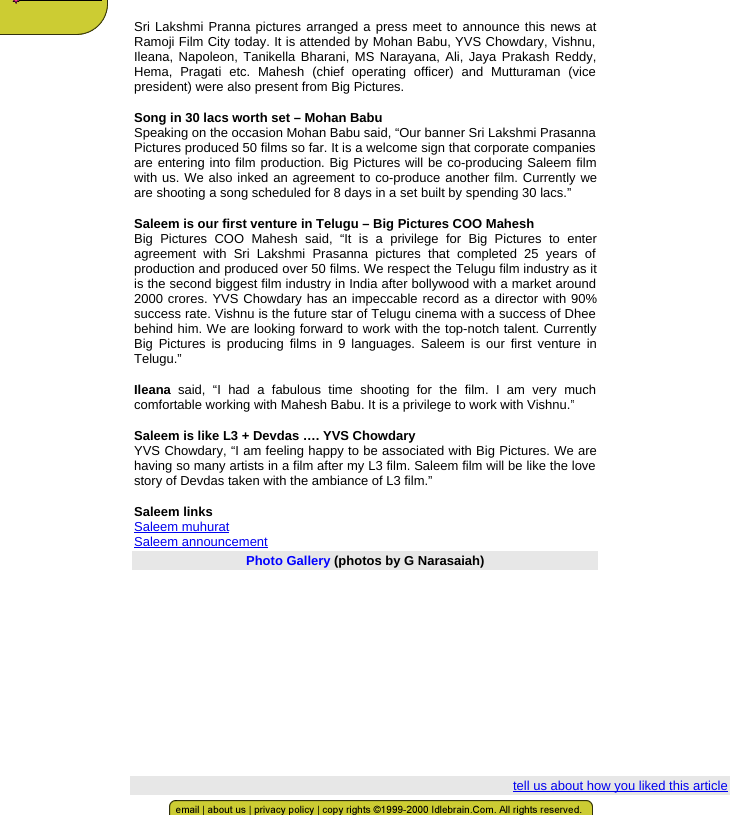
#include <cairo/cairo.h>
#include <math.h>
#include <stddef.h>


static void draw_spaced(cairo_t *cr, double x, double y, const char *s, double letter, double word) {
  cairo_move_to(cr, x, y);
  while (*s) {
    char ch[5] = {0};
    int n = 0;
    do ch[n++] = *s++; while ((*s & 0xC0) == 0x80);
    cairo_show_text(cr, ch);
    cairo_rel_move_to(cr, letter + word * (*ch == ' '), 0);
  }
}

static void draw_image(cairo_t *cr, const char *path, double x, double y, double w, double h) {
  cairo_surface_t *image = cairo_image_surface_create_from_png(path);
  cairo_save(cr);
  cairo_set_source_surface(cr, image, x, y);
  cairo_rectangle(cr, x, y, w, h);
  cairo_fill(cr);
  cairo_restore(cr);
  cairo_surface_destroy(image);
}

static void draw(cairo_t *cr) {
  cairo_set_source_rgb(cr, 1, 1, 1);
  cairo_paint(cr);
  draw_image(cr, "images/1.png", 0, 0, 108, 3);
  draw_image(cr, "images/2.png", 0, 3, 108, 32);
  cairo_set_source_rgb(cr, 0, 0, 238 / 255.0);
  cairo_rectangle(cr, 134, 532, 95, 1);
  cairo_fill(cr);
  cairo_rectangle(cr, 134, 547, 134, 1);
  cairo_fill(cr);
  cairo_set_source_rgb(cr, 231 / 255.0, 231 / 255.0, 231 / 255.0);
  cairo_rectangle(cr, 132, 551, 466, 19);
  cairo_fill(cr);
  cairo_rectangle(cr, 130, 776, 600, 19);
  cairo_fill(cr);
  cairo_set_source_rgb(cr, 0, 0, 238 / 255.0);
  cairo_rectangle(cr, 513, 791, 215, 1);
  cairo_fill(cr);
  draw_image(cr, "images/3.png", 169, 800, 34, 15);
  draw_image(cr, "images/4.png", 203, 800, 47, 15);
  draw_image(cr, "images/5.png", 250, 800, 68, 15);
  draw_image(cr, "images/6.png", 318, 800, 53, 15);
  draw_image(cr, "images/7.png", 371, 800, 222, 15);
  cairo_select_font_face(cr, "Liberation Sans", CAIRO_FONT_SLANT_NORMAL, CAIRO_FONT_WEIGHT_NORMAL);
  cairo_set_font_size(cr, 13);
  cairo_set_source_rgb(cr, 0, 0, 0);
  draw_spaced(cr, 134, 31, "Sri Lakshmi Pranna pictures arranged a press meet to announce this news at", 0, 1.5);
  draw_spaced(cr, 134, 46, "Ramoji Film City today. It is attended by Mohan Babu, YVS Chowdary, Vishnu,", 0, 0.75);
  draw_spaced(cr, 134, 61, "Ileana, Napoleon, Tanikella Bharani, MS Narayana, Ali, Jaya Prakash Reddy,", 0, 1.9);
  draw_spaced(cr, 134, 76, "Hema, Pragati etc. Mahesh (chief operating officer) and Mutturaman (vice", 0, 4.25);
  cairo_move_to(cr, 134, 91);
  cairo_show_text(cr, "president) were also present from Big Pictures.");
  cairo_select_font_face(cr, "Liberation Sans", CAIRO_FONT_SLANT_NORMAL, CAIRO_FONT_WEIGHT_BOLD);
  cairo_move_to(cr, 134, 122);
  cairo_show_text(cr, "Song in 30 lacs worth set – Mohan Babu");
  cairo_select_font_face(cr, "Liberation Sans", CAIRO_FONT_SLANT_NORMAL, CAIRO_FONT_WEIGHT_NORMAL);
  cairo_move_to(cr, 134, 137);
  cairo_show_text(cr, "Speaking on the occasion Mohan Babu said, “Our banner Sri Lakshmi Prasanna");
  draw_spaced(cr, 134, 152, "Pictures produced 50 films so far. It is a welcome sign that corporate companies", 0, 0.1);
  draw_spaced(cr, 134, 167, "are entering into film production. Big Pictures will be co-producing Saleem film", 0, 1.25);
  draw_spaced(cr, 134, 182, "with us. We also inked an agreement to co-produce another film. Currently we", 0, 1.25);
  cairo_move_to(cr, 134, 197);
  cairo_show_text(cr, "are shooting a song scheduled for 8 days in a set built by spending 30 lacs.”");
  cairo_select_font_face(cr, "Liberation Sans", CAIRO_FONT_SLANT_NORMAL, CAIRO_FONT_WEIGHT_BOLD);
  cairo_move_to(cr, 134, 228);
  cairo_show_text(cr, "Saleem is our first venture in Telugu – Big Pictures COO Mahesh");
  cairo_select_font_face(cr, "Liberation Sans", CAIRO_FONT_SLANT_NORMAL, CAIRO_FONT_WEIGHT_NORMAL);
  draw_spaced(cr, 134, 243, "Big Pictures COO Mahesh said, “It is a privilege for Big Pictures to enter", 0, 3.75);
  draw_spaced(cr, 134, 258, "agreement with Sri Lakshmi Prasanna pictures that completed 25 years of", 0, 3.6);
  draw_spaced(cr, 134, 273, "production and produced over 50 films. We respect the Telugu film industry as it", 0, 0.25);
  draw_spaced(cr, 134, 288, "is the second biggest film industry in India after bollywood with a market around", 0, 0.4);
  draw_spaced(cr, 134, 303, "2000 crores. YVS Chowdary has an impeccable record as a director with 90%", 0, 1.25);
  draw_spaced(cr, 134, 318, "success rate. Vishnu is the future star of Telugu cinema with a success of Dhee", 0, 0.3);
  draw_spaced(cr, 134, 333, "behind him. We are looking forward to work with the top-notch talent. Currently", 0, 0.9);
  draw_spaced(cr, 134, 348, "Big Pictures is producing films in 9 languages. Saleem is our first venture in", 0, 2.25);
  cairo_move_to(cr, 134, 363);
  cairo_show_text(cr, "Telugu.”");
  cairo_select_font_face(cr, "Liberation Sans", CAIRO_FONT_SLANT_NORMAL, CAIRO_FONT_WEIGHT_BOLD);
  cairo_move_to(cr, 134, 394);
  cairo_show_text(cr, "Ileana");
  cairo_select_font_face(cr, "Liberation Sans", CAIRO_FONT_SLANT_NORMAL, CAIRO_FONT_WEIGHT_NORMAL);
  draw_spaced(cr, 178, 394, "said, “I had a fabulous time shooting for the film. I am very much", 0, 3.75);
  cairo_move_to(cr, 134, 409);
  cairo_show_text(cr, "comfortable working with Mahesh Babu. It is a privilege to work with Vishnu.”");
  cairo_select_font_face(cr, "Liberation Sans", CAIRO_FONT_SLANT_NORMAL, CAIRO_FONT_WEIGHT_BOLD);
  cairo_move_to(cr, 134, 440);
  cairo_show_text(cr, "Saleem is like L3 + Devdas …. YVS Chowdary");
  cairo_select_font_face(cr, "Liberation Sans", CAIRO_FONT_SLANT_NORMAL, CAIRO_FONT_WEIGHT_NORMAL);
  draw_spaced(cr, 134, 455, "YVS Chowdary, “I am feeling happy to be associated with Big Pictures. We are", 0, 0.75);
  draw_spaced(cr, 134, 470, "having so many artists in a film after my L3 film. Saleem film will be like the love", 0, 0.25);
  cairo_move_to(cr, 134, 485);
  cairo_show_text(cr, "story of Devdas taken with the ambiance of L3 film.”");
  cairo_select_font_face(cr, "Liberation Sans", CAIRO_FONT_SLANT_NORMAL, CAIRO_FONT_WEIGHT_BOLD);
  cairo_move_to(cr, 134, 516);
  cairo_show_text(cr, "Saleem links");
  cairo_select_font_face(cr, "Liberation Sans", CAIRO_FONT_SLANT_NORMAL, CAIRO_FONT_WEIGHT_NORMAL);
  cairo_set_source_rgb(cr, 0, 0, 238 / 255.0);
  cairo_move_to(cr, 134, 531);
  cairo_show_text(cr, "Saleem muhurat");
  cairo_move_to(cr, 134, 546);
  cairo_show_text(cr, "Saleem announcement");
  cairo_select_font_face(cr, "Liberation Sans", CAIRO_FONT_SLANT_NORMAL, CAIRO_FONT_WEIGHT_BOLD);
  cairo_set_source_rgb(cr, 0, 0, 1);
  cairo_move_to(cr, 246, 565);
  cairo_show_text(cr, "Photo Gallery");
  cairo_set_source_rgb(cr, 0, 0, 0);
  cairo_move_to(cr, 334, 565);
  cairo_show_text(cr, "(photos by G Narasaiah)");
  cairo_select_font_face(cr, "Liberation Sans", CAIRO_FONT_SLANT_NORMAL, CAIRO_FONT_WEIGHT_NORMAL);
  cairo_set_source_rgb(cr, 0, 0, 238 / 255.0);
  cairo_move_to(cr, 513, 790);
  cairo_show_text(cr, "tell us about how you liked this article");
}

int main(void) {
  cairo_surface_t *surface = cairo_image_surface_create(CAIRO_FORMAT_RGB24, 732, 818);
  cairo_t *cr = cairo_create(surface);
  cairo_font_options_t *options = cairo_font_options_create();
  cairo_font_options_set_hint_metrics(options, CAIRO_HINT_METRICS_OFF);
  cairo_font_options_set_hint_style(options, CAIRO_HINT_STYLE_NONE);
  cairo_set_font_options(cr, options);
  cairo_set_miter_limit(cr, 4);
  draw(cr);
  cairo_surface_write_to_png(surface, "out.png");
  cairo_font_options_destroy(options);
  cairo_destroy(cr);
  cairo_surface_destroy(surface);
  return 0;
}
